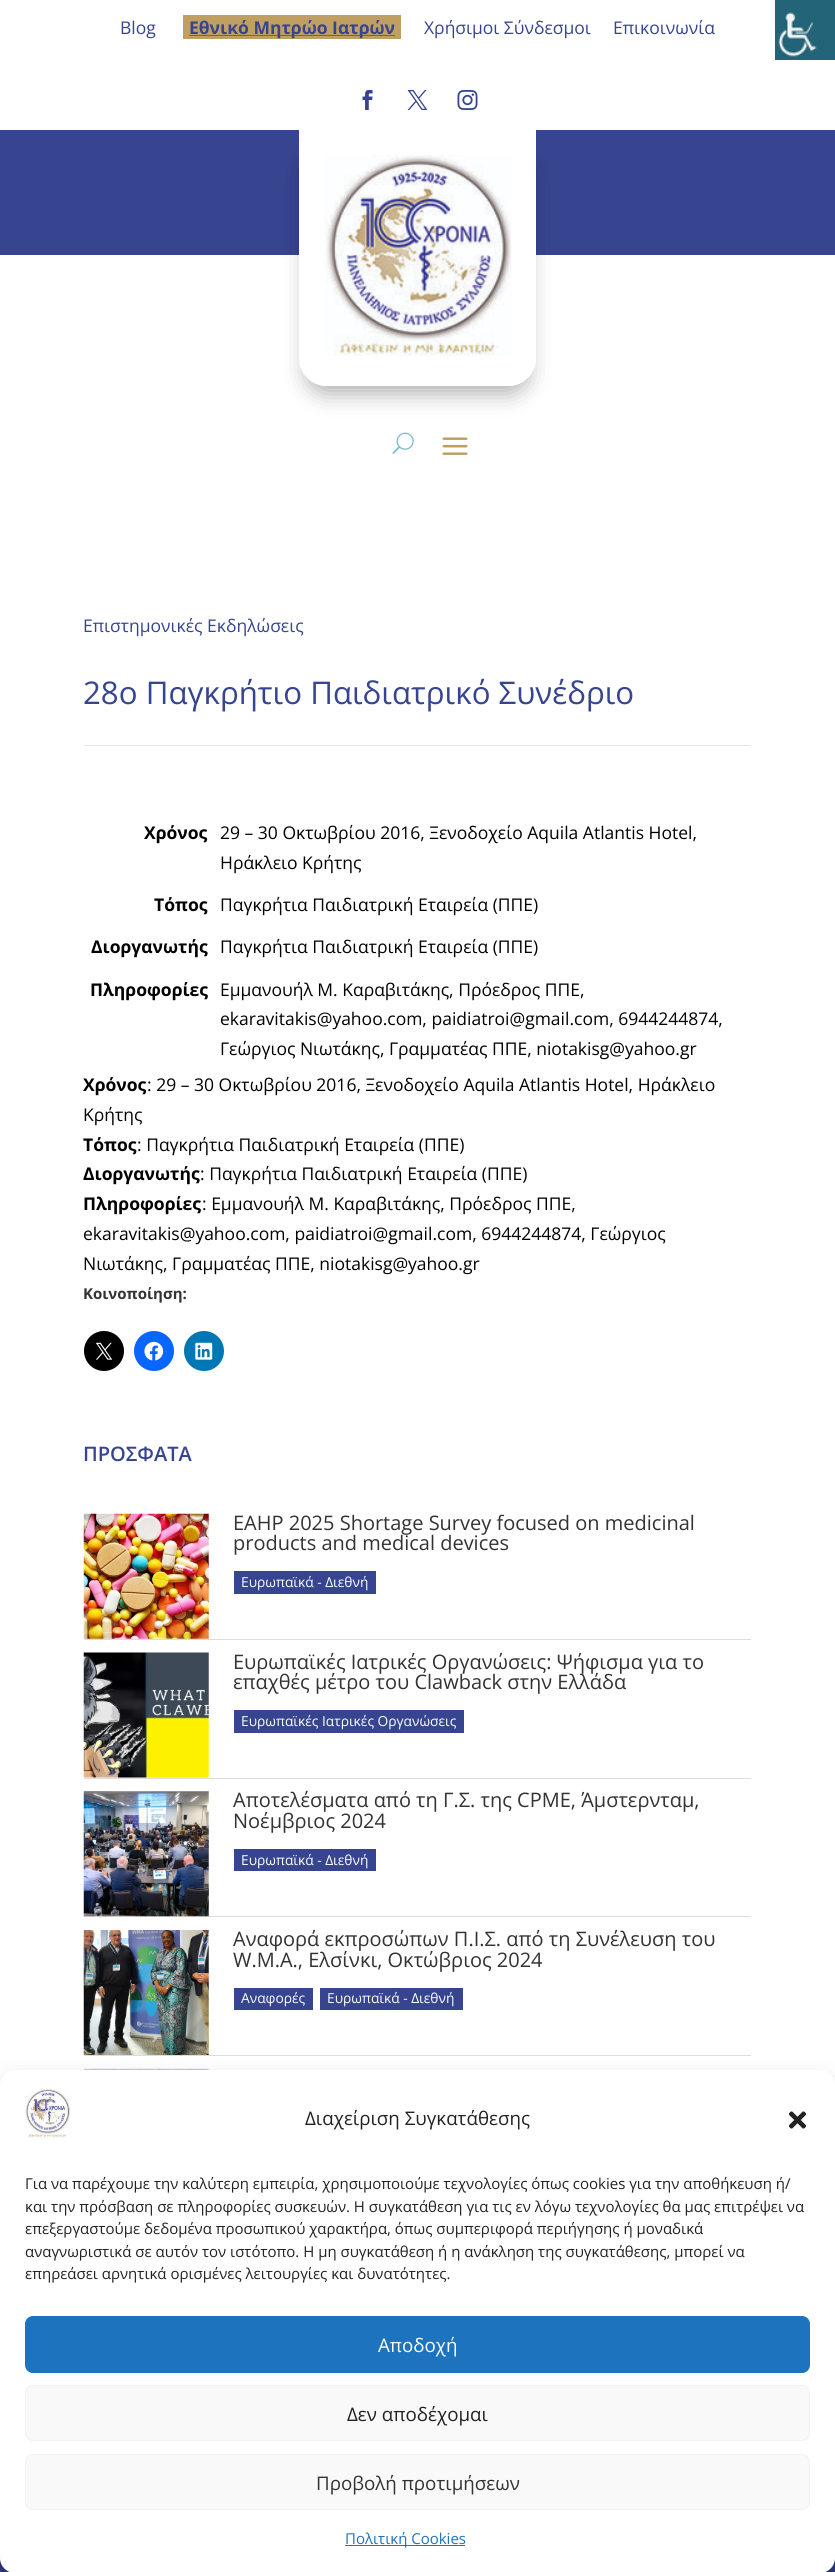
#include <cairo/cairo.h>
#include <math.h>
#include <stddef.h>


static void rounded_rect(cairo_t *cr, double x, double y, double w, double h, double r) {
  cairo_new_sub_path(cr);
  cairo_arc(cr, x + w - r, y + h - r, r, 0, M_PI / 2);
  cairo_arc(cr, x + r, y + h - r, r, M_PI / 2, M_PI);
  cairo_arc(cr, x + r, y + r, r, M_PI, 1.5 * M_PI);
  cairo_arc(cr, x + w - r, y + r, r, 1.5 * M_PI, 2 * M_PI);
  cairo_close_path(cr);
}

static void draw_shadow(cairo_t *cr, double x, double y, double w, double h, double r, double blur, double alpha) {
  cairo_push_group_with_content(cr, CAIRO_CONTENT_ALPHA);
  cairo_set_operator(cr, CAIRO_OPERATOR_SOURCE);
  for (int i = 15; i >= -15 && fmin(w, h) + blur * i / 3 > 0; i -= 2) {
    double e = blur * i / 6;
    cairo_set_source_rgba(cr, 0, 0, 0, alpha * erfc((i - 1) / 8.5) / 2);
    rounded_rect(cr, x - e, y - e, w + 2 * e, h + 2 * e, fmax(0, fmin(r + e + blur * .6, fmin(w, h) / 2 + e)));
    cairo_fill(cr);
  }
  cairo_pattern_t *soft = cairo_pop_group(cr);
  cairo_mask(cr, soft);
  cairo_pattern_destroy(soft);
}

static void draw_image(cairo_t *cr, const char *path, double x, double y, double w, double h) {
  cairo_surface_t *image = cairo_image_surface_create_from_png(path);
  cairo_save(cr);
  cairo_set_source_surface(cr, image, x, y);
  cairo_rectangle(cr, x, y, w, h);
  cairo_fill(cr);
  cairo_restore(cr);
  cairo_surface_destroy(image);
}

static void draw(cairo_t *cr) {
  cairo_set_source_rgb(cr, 1, 1, 1);
  cairo_paint(cr);
  cairo_set_source_rgb(cr, 191 / 255.0, 159 / 255.0, 98 / 255.0);
  cairo_rectangle(cr, 183, 15, 218, 24);
  cairo_fill(cr);
  cairo_set_source_rgb(cr, 102 / 255.0, 102 / 255.0, 102 / 255.0);
  cairo_rectangle(cr, 189, 35, 206, 1);
  cairo_fill(cr);
  draw_image(cr, "images/1.png", 362, 90, 11, 20);
  draw_image(cr, "images/2.png", 407, 90, 21, 20);
  draw_image(cr, "images/3.png", 457, 90, 21, 20);
  cairo_set_source_rgb(cr, 55 / 255.0, 68 / 255.0, 143 / 255.0);
  cairo_rectangle(cr, 0, 130, 835, 125);
  cairo_fill(cr);
  cairo_save(cr);
  cairo_set_fill_rule(cr, CAIRO_FILL_RULE_EVEN_ODD);
  cairo_new_path(cr);
  cairo_move_to(cr, 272, 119);
  cairo_line_to(cr, 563, 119);
  cairo_line_to(cr, 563, 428);
  cairo_line_to(cr, 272, 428);
  cairo_close_path(cr);
  cairo_move_to(cr, 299, 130);
  cairo_line_to(cr, 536, 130);
  cairo_line_to(cr, 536, 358);
  cairo_curve_to(cr, 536, 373.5, 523.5, 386, 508, 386);
  cairo_line_to(cr, 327, 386);
  cairo_curve_to(cr, 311.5, 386, 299, 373.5, 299, 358);
  cairo_close_path(cr);
  cairo_clip(cr);
  cairo_set_source_rgb(cr, 0, 0, 0);
  draw_shadow(cr, 306, 153, 223, 241, 20, 11, 0.3);
  cairo_restore(cr);
  cairo_new_path(cr);
  cairo_move_to(cr, 311.5, 142.5);
  cairo_line_to(cr, 523.5, 142.5);
  cairo_line_to(cr, 523.5, 358);
  cairo_curve_to(cr, 523.5, 366.5, 516.5, 373.5, 508, 373.5);
  cairo_line_to(cr, 327, 373.5);
  cairo_curve_to(cr, 318.5, 373.5, 311.5, 366.5, 311.5, 358);
  cairo_close_path(cr);
  cairo_set_source_rgb(cr, 1, 1, 1);
  cairo_set_line_width(cr, 25);
  cairo_stroke(cr);
  draw_image(cr, "images/4.png", 324, 155, 187, 201);
  draw_image(cr, "images/5.png", 392, 432, 22, 22);
  draw_image(cr, "images/6.png", 442, 437, 26, 18);
  cairo_set_source_rgb(cr, 229 / 255.0, 229 / 255.0, 229 / 255.0);
  cairo_rectangle(cr, 84, 745, 667, 1);
  cairo_fill(cr);
  cairo_set_source_rgb(cr, 0, 0, 0);
  cairo_arc(cr, 104, 1351, 20, 0, 2 * M_PI);
  cairo_fill(cr);
  draw_image(cr, "images/7.png", 95, 1342, 18, 18);
  cairo_set_source_rgb(cr, 8 / 255.0, 102 / 255.0, 1);
  cairo_arc(cr, 154, 1351, 20, 0, 2 * M_PI);
  cairo_fill(cr);
  draw_image(cr, "images/8.png", 144, 1341, 20, 20);
  cairo_set_source_rgb(cr, 0, 119 / 255.0, 181 / 255.0);
  cairo_arc(cr, 204, 1351, 20, 0, 2 * M_PI);
  cairo_fill(cr);
  draw_image(cr, "images/9.png", 195, 1342, 18, 18);
  cairo_set_source_rgb(cr, 221 / 255.0, 221 / 255.0, 221 / 255.0);
  cairo_rectangle(cr, 84, 1639, 667, 1);
  cairo_fill(cr);
  draw_image(cr, "images/10.png", 83, 1513, 126, 126);
  cairo_set_source_rgb(cr, 55 / 255.0, 68 / 255.0, 143 / 255.0);
  cairo_rectangle(cr, 234, 1571, 142, 23);
  cairo_fill(cr);
  cairo_set_source_rgb(cr, 221 / 255.0, 221 / 255.0, 221 / 255.0);
  cairo_rectangle(cr, 84, 1778, 667, 1);
  cairo_fill(cr);
  draw_image(cr, "images/11.png", 83, 1652, 126, 126);
  cairo_set_source_rgb(cr, 55 / 255.0, 68 / 255.0, 143 / 255.0);
  cairo_rectangle(cr, 234, 1710, 230, 23);
  cairo_fill(cr);
  cairo_set_source_rgb(cr, 221 / 255.0, 221 / 255.0, 221 / 255.0);
  cairo_rectangle(cr, 84, 1916, 667, 1);
  cairo_fill(cr);
  draw_image(cr, "images/12.png", 83, 1791, 126, 126);
  cairo_set_source_rgb(cr, 55 / 255.0, 68 / 255.0, 143 / 255.0);
  cairo_rectangle(cr, 234, 1849, 142, 22);
  cairo_fill(cr);
  cairo_set_source_rgb(cr, 221 / 255.0, 221 / 255.0, 221 / 255.0);
  cairo_rectangle(cr, 84, 2055, 667, 1);
  cairo_fill(cr);
  draw_image(cr, "images/13.png", 83, 1930, 126, 125);
  cairo_set_source_rgb(cr, 55 / 255.0, 68 / 255.0, 143 / 255.0);
  cairo_rectangle(cr, 234, 1988, 79, 22);
  cairo_fill(cr);
  cairo_rectangle(cr, 320, 1988, 143, 22);
  cairo_fill(cr);
  draw_image(cr, "images/14.png", 83, 2068, 126, 2);
  cairo_rectangle(cr, 0, 2558, 835, 14);
  cairo_fill(cr);
  draw_image(cr, "images/15.png", 775, 0, 60, 60);
  cairo_set_source_rgb(cr, 0, 0, 0);
  draw_shadow(cr, 0, 2078, 835, 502, 15, 4, 0.23);
  draw_shadow(cr, 0, 2083, 835, 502, 15, 12.5, 0.19);
  cairo_set_source_rgb(cr, 1, 1, 1);
  rounded_rect(cr, 0, 2070, 835, 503, 15);
  cairo_fill(cr);
  draw_image(cr, "images/16.png", 25, 2089, 45, 49);
  draw_image(cr, "images/17.png", 788, 2111, 19, 18);
  cairo_set_source_rgb(cr, 30 / 255.0, 115 / 255.0, 190 / 255.0);
  rounded_rect(cr, 25.5, 2316.5, 784, 56, 7.5);
  cairo_fill_preserve(cr);
  cairo_set_line_width(cr, 1);
  cairo_stroke(cr);
  cairo_set_source_rgb(cr, 249 / 255.0, 249 / 255.0, 249 / 255.0);
  rounded_rect(cr, 25.5, 2385.5, 784, 55, 7.5);
  cairo_fill_preserve(cr);
  cairo_set_source_rgb(cr, 242 / 255.0, 242 / 255.0, 242 / 255.0);
  cairo_stroke(cr);
  cairo_set_source_rgb(cr, 249 / 255.0, 249 / 255.0, 249 / 255.0);
  rounded_rect(cr, 25.5, 2454.5, 784, 55, 7.5);
  cairo_fill_preserve(cr);
  cairo_set_source_rgb(cr, 242 / 255.0, 242 / 255.0, 242 / 255.0);
  cairo_stroke(cr);
  cairo_set_source_rgb(cr, 30 / 255.0, 115 / 255.0, 190 / 255.0);
  cairo_rectangle(cr, 345, 2545, 120, 1);
  cairo_fill(cr);
  cairo_select_font_face(cr, "Open Sans", CAIRO_FONT_SLANT_NORMAL, CAIRO_FONT_WEIGHT_NORMAL);
  cairo_set_font_size(cr, 17.5);
  cairo_set_source_rgb(cr, 55 / 255.0, 68 / 255.0, 143 / 255.0);
  cairo_move_to(cr, 120, 34);
  cairo_show_text(cr, "Blog");
  cairo_select_font_face(cr, "Open Sans", CAIRO_FONT_SLANT_NORMAL, CAIRO_FONT_WEIGHT_BOLD);
  cairo_move_to(cr, 189, 34);
  cairo_show_text(cr, "Eθνικό Μητρώο Ιατρών");
  cairo_select_font_face(cr, "Open Sans", CAIRO_FONT_SLANT_NORMAL, CAIRO_FONT_WEIGHT_NORMAL);
  cairo_move_to(cr, 424, 34);
  cairo_show_text(cr, "Χρήσιμοι Σύνδεσμοι");
  cairo_move_to(cr, 613, 34);
  cairo_show_text(cr, "Επικοινωνία");
  cairo_move_to(cr, 83, 632);
  cairo_show_text(cr, "Επιστημονικές Εκδηλώσεις");
  cairo_set_font_size(cr, 31.25);
  cairo_move_to(cr, 83, 704);
  cairo_show_text(cr, "28ο Παγκρήτιο Παιδιατρικό Συνέδριο");
  cairo_select_font_face(cr, "Open Sans", CAIRO_FONT_SLANT_NORMAL, CAIRO_FONT_WEIGHT_BOLD);
  cairo_set_font_size(cr, 17.5);
  cairo_set_source_rgb(cr, 0, 0, 0);
  cairo_move_to(cr, 144, 839);
  cairo_show_text(cr, "Χρόνος");
  cairo_select_font_face(cr, "Open Sans", CAIRO_FONT_SLANT_NORMAL, CAIRO_FONT_WEIGHT_NORMAL);
  cairo_move_to(cr, 220, 839);
  cairo_show_text(cr, "29 – 30 Οκτωβρίου 2016, Ξενοδοχείο Aquila Atlantis Hotel,");
  cairo_move_to(cr, 220, 869);
  cairo_show_text(cr, "Ηράκλειο Κρήτης");
  cairo_select_font_face(cr, "Open Sans", CAIRO_FONT_SLANT_NORMAL, CAIRO_FONT_WEIGHT_BOLD);
  cairo_move_to(cr, 154, 911);
  cairo_show_text(cr, "Τόπος");
  cairo_select_font_face(cr, "Open Sans", CAIRO_FONT_SLANT_NORMAL, CAIRO_FONT_WEIGHT_NORMAL);
  cairo_move_to(cr, 220, 911);
  cairo_show_text(cr, "Παγκρήτια Παιδιατρική Εταιρεία (ΠΠΕ)");
  cairo_select_font_face(cr, "Open Sans", CAIRO_FONT_SLANT_NORMAL, CAIRO_FONT_WEIGHT_BOLD);
  cairo_move_to(cr, 91, 953);
  cairo_show_text(cr, "Διοργανωτής");
  cairo_select_font_face(cr, "Open Sans", CAIRO_FONT_SLANT_NORMAL, CAIRO_FONT_WEIGHT_NORMAL);
  cairo_move_to(cr, 220, 953);
  cairo_show_text(cr, "Παγκρήτια Παιδιατρική Εταιρεία (ΠΠΕ)");
  cairo_select_font_face(cr, "Open Sans", CAIRO_FONT_SLANT_NORMAL, CAIRO_FONT_WEIGHT_BOLD);
  cairo_move_to(cr, 90, 996);
  cairo_show_text(cr, "Πληροφορίες");
  cairo_select_font_face(cr, "Open Sans", CAIRO_FONT_SLANT_NORMAL, CAIRO_FONT_WEIGHT_NORMAL);
  cairo_move_to(cr, 220, 996);
  cairo_show_text(cr, "Εμμανουήλ Μ. Καραβιτάκης, Πρόεδρος ΠΠΕ,");
  cairo_move_to(cr, 220, 1025);
  cairo_show_text(cr, "ekaravitakis@yahoo.com, paidiatroi@gmail.com, 6944244874,");
  cairo_move_to(cr, 220, 1055);
  cairo_show_text(cr, "Γεώργιος Νιωτάκης, Γραμματέας ΠΠΕ, niotakisg@yahoo.gr");
  cairo_select_font_face(cr, "Open Sans", CAIRO_FONT_SLANT_NORMAL, CAIRO_FONT_WEIGHT_BOLD);
  cairo_move_to(cr, 83, 1091);
  cairo_show_text(cr, "Χρόνος");
  cairo_select_font_face(cr, "Open Sans", CAIRO_FONT_SLANT_NORMAL, CAIRO_FONT_WEIGHT_NORMAL);
  cairo_move_to(cr, 147, 1091);
  cairo_show_text(cr, ": 29 – 30 Οκτωβρίου 2016, Ξενοδοχείο Aquila Atlantis Hotel, Ηράκλειο");
  cairo_move_to(cr, 83, 1121);
  cairo_show_text(cr, "Κρήτης");
  cairo_select_font_face(cr, "Open Sans", CAIRO_FONT_SLANT_NORMAL, CAIRO_FONT_WEIGHT_BOLD);
  cairo_move_to(cr, 83, 1151);
  cairo_show_text(cr, "Τόπος");
  cairo_select_font_face(cr, "Open Sans", CAIRO_FONT_SLANT_NORMAL, CAIRO_FONT_WEIGHT_NORMAL);
  cairo_move_to(cr, 137, 1151);
  cairo_show_text(cr, ": Παγκρήτια Παιδιατρική Εταιρεία (ΠΠΕ)");
  cairo_select_font_face(cr, "Open Sans", CAIRO_FONT_SLANT_NORMAL, CAIRO_FONT_WEIGHT_BOLD);
  cairo_move_to(cr, 83, 1180);
  cairo_show_text(cr, "Διοργανωτής");
  cairo_select_font_face(cr, "Open Sans", CAIRO_FONT_SLANT_NORMAL, CAIRO_FONT_WEIGHT_NORMAL);
  cairo_move_to(cr, 200, 1180);
  cairo_show_text(cr, ": Παγκρήτια Παιδιατρική Εταιρεία (ΠΠΕ)");
  cairo_select_font_face(cr, "Open Sans", CAIRO_FONT_SLANT_NORMAL, CAIRO_FONT_WEIGHT_BOLD);
  cairo_move_to(cr, 83, 1210);
  cairo_show_text(cr, "Πληροφορίες");
  cairo_select_font_face(cr, "Open Sans", CAIRO_FONT_SLANT_NORMAL, CAIRO_FONT_WEIGHT_NORMAL);
  cairo_move_to(cr, 202, 1210);
  cairo_show_text(cr, ": Εμμανουήλ Μ. Καραβιτάκης, Πρόεδρος ΠΠΕ,");
  cairo_move_to(cr, 83, 1240);
  cairo_show_text(cr, "ekaravitakis@yahoo.com, paidiatroi@gmail.com, 6944244874, Γεώργιος");
  cairo_move_to(cr, 83, 1270);
  cairo_show_text(cr, "Νιωτάκης, Γραμματέας ΠΠΕ, niotakisg@yahoo.gr");
  cairo_select_font_face(cr, "Open Sans", CAIRO_FONT_SLANT_NORMAL, CAIRO_FONT_WEIGHT_BOLD);
  cairo_set_font_size(cr, 15);
  cairo_set_source_rgb(cr, 51 / 255.0, 51 / 255.0, 51 / 255.0);
  cairo_move_to(cr, 83, 1299);
  cairo_show_text(cr, "Κοινοποίηση:");
  cairo_select_font_face(cr, "Open Sans SemiBold", CAIRO_FONT_SLANT_NORMAL, CAIRO_FONT_WEIGHT_NORMAL);
  cairo_set_font_size(cr, 20);
  cairo_set_source_rgb(cr, 55 / 255.0, 68 / 255.0, 143 / 255.0);
  cairo_move_to(cr, 83, 1461);
  cairo_show_text(cr, "ΠΡΟΣΦΑΤΑ");
  cairo_select_font_face(cr, "Open Sans", CAIRO_FONT_SLANT_NORMAL, CAIRO_FONT_WEIGHT_NORMAL);
  cairo_set_source_rgb(cr, 51 / 255.0, 51 / 255.0, 51 / 255.0);
  cairo_move_to(cr, 233, 1530);
  cairo_show_text(cr, "EAHP 2025 Shortage Survey focused on medicinal");
  cairo_move_to(cr, 233, 1550);
  cairo_show_text(cr, "products and medical devices");
  cairo_set_font_size(cr, 13.75);
  cairo_set_source_rgb(cr, 1, 1, 1);
  cairo_move_to(cr, 241, 1587);
  cairo_show_text(cr, "Ευρωπαϊκά - Διεθνή");
  cairo_set_font_size(cr, 20);
  cairo_set_source_rgb(cr, 51 / 255.0, 51 / 255.0, 51 / 255.0);
  cairo_move_to(cr, 233, 1669);
  cairo_show_text(cr, "Ευρωπαϊκές Ιατρικές Οργανώσεις: Ψήφισμα για το");
  cairo_move_to(cr, 233, 1689);
  cairo_show_text(cr, "επαχθές μέτρο του Clawback στην Ελλάδα");
  cairo_set_font_size(cr, 13.75);
  cairo_set_source_rgb(cr, 1, 1, 1);
  cairo_move_to(cr, 241, 1726);
  cairo_show_text(cr, "Ευρωπαϊκές Ιατρικές Οργανώσεις");
  cairo_set_font_size(cr, 20);
  cairo_set_source_rgb(cr, 51 / 255.0, 51 / 255.0, 51 / 255.0);
  cairo_move_to(cr, 233, 1807);
  cairo_show_text(cr, "Αποτελέσματα από τη Γ.Σ. της CPME, Άμστερνταμ,");
  cairo_move_to(cr, 233, 1828);
  cairo_show_text(cr, "Νοέμβριος 2024");
  cairo_set_font_size(cr, 13.75);
  cairo_set_source_rgb(cr, 1, 1, 1);
  cairo_move_to(cr, 241, 1865);
  cairo_show_text(cr, "Ευρωπαϊκά - Διεθνή");
  cairo_set_font_size(cr, 20);
  cairo_set_source_rgb(cr, 51 / 255.0, 51 / 255.0, 51 / 255.0);
  cairo_move_to(cr, 233, 1946);
  cairo_show_text(cr, "Αναφορά εκπροσώπων Π.Ι.Σ. από τη Συνέλευση του");
  cairo_move_to(cr, 233, 1967);
  cairo_show_text(cr, "W.M.A., Ελσίνκι, Οκτώβριος 2024");
  cairo_set_font_size(cr, 13.75);
  cairo_set_source_rgb(cr, 1, 1, 1);
  cairo_move_to(cr, 241, 2003);
  cairo_show_text(cr, "Αναφορές");
  cairo_move_to(cr, 327, 2003);
  cairo_show_text(cr, "Ευρωπαϊκά - Διεθνή");
  cairo_set_font_size(cr, 18.75);
  cairo_set_source_rgb(cr, 34 / 255.0, 34 / 255.0, 34 / 255.0);
  cairo_move_to(cr, 305, 2125);
  cairo_show_text(cr, "Διαχείριση Συγκατάθεσης");
  cairo_set_font_size(cr, 15);
  cairo_move_to(cr, 25, 2189);
  cairo_show_text(cr, "Για να παρέχουμε την καλύτερη εμπειρία, χρησιμοποιούμε τεχνολογίες όπως cookies για την αποθήκευση ή/");
  cairo_move_to(cr, 25, 2212);
  cairo_show_text(cr, "και την πρόσβαση σε πληροφορίες συσκευών. Η συγκατάθεση για τις εν λόγω τεχνολογίες θα μας επιτρέψει να");
  cairo_move_to(cr, 25, 2234);
  cairo_show_text(cr, "επεξεργαστούμε δεδομένα προσωπικού χαρακτήρα, όπως συμπεριφορά περιήγησης ή μοναδικά");
  cairo_move_to(cr, 25, 2257);
  cairo_show_text(cr, "αναγνωριστικά σε αυτόν τον ιστότοπο. Η μη συγκατάθεση ή η ανάκληση της συγκατάθεσης, μπορεί να");
  cairo_move_to(cr, 25, 2279);
  cairo_show_text(cr, "επηρεάσει αρνητικά ορισμένες λειτουργίες και δυνατότητες.");
  cairo_set_font_size(cr, 18.75);
  cairo_set_source_rgb(cr, 1, 1, 1);
  cairo_move_to(cr, 378, 2352);
  cairo_show_text(cr, "Αποδοχή");
  cairo_set_source_rgb(cr, 34 / 255.0, 34 / 255.0, 34 / 255.0);
  cairo_move_to(cr, 347, 2421);
  cairo_show_text(cr, "Δεν αποδέχομαι");
  cairo_set_source_rgb(cr, 51 / 255.0, 51 / 255.0, 51 / 255.0);
  cairo_move_to(cr, 316, 2490);
  cairo_show_text(cr, "Προβολή προτιμήσεων");
  cairo_set_font_size(cr, 15);
  cairo_set_source_rgb(cr, 30 / 255.0, 115 / 255.0, 190 / 255.0);
  cairo_move_to(cr, 345, 2544);
  cairo_show_text(cr, "Πολιτική Cookies");
}

int main(void) {
  cairo_surface_t *surface = cairo_image_surface_create(CAIRO_FORMAT_RGB24, 835, 2572);
  cairo_t *cr = cairo_create(surface);
  cairo_font_options_t *options = cairo_font_options_create();
  cairo_font_options_set_hint_metrics(options, CAIRO_HINT_METRICS_OFF);
  cairo_font_options_set_hint_style(options, CAIRO_HINT_STYLE_NONE);
  cairo_set_font_options(cr, options);
  cairo_set_miter_limit(cr, 4);
  draw(cr);
  cairo_surface_write_to_png(surface, "out.png");
  cairo_font_options_destroy(options);
  cairo_destroy(cr);
  cairo_surface_destroy(surface);
  return 0;
}
